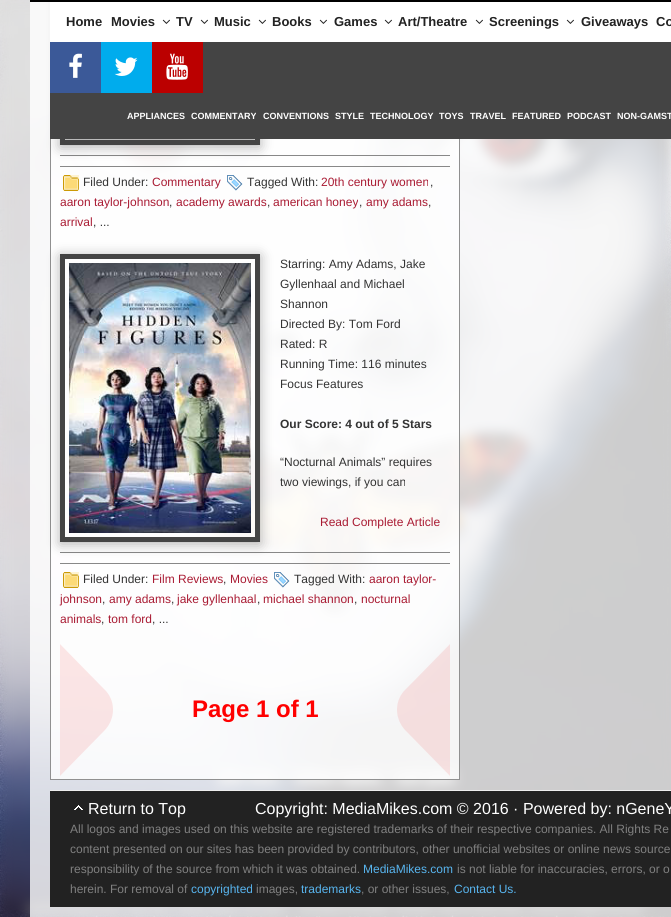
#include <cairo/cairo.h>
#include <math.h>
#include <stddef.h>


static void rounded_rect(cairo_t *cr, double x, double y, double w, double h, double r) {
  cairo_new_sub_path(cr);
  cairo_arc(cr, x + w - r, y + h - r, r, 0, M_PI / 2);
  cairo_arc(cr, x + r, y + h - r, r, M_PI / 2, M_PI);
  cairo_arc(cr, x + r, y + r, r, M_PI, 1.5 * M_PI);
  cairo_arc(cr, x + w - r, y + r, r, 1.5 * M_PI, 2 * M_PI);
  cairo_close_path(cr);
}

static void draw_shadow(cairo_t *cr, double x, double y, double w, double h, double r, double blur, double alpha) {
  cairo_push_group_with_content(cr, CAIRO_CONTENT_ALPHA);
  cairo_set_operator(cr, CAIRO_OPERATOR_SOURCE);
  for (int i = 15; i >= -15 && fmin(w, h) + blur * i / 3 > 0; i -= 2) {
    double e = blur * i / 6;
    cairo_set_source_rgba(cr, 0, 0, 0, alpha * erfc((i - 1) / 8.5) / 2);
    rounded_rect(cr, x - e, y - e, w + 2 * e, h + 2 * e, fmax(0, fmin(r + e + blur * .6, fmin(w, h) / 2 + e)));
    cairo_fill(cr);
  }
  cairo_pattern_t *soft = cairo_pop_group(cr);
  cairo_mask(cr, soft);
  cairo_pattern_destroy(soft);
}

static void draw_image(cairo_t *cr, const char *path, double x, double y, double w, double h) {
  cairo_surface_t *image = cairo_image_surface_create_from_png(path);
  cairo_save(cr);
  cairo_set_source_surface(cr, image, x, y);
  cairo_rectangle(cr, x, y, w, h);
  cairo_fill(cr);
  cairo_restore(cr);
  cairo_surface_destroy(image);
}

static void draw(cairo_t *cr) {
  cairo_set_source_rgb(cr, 1, 1, 1);
  cairo_paint(cr);
  draw_image(cr, "images/1.png", 0, 0, 671, 917);
  draw_image(cr, "images/2.png", 0, 0, 671, 917);
  cairo_set_source_rgba(cr, 1, 1, 1, 0.8);
  cairo_rectangle(cr, 51, 139, 408, 640);
  cairo_fill(cr);
  cairo_rectangle(cr, 50.5, -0.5, 409, 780);
  cairo_set_source_rgb(cr, 144 / 255.0, 144 / 255.0, 144 / 255.0);
  cairo_set_line_width(cr, 1);
  cairo_stroke(cr);
  cairo_set_source_rgb(cr, 136 / 255.0, 136 / 255.0, 136 / 255.0);
  cairo_rectangle(cr, 60, 155, 390, 1);
  cairo_fill(cr);
  cairo_rectangle(cr, 60, 166, 390, 1);
  cairo_fill(cr);
  cairo_set_source_rgb(cr, 0, 0, 0);
  draw_shadow(cr, 60, -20, 200, 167, 0, 6.5, 0.3);
  cairo_rectangle(cr, 62.5, -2.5, 195, 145);
  cairo_set_source_rgb(cr, 68 / 255.0, 68 / 255.0, 68 / 255.0);
  cairo_set_line_width(cr, 5);
  cairo_stroke(cr);
  cairo_set_source_rgb(cr, 0, 0, 0);
  cairo_rectangle(cr, 30, 0, 641, 2);
  cairo_fill(cr);
  cairo_set_source_rgb(cr, 1, 1, 1);
  cairo_rectangle(cr, 50, 2, 621, 40);
  cairo_fill(cr);
  draw_image(cr, "images/3.png", 162, 19, 8, 5);
  draw_image(cr, "images/3.png", 200, 19, 8, 5);
  draw_image(cr, "images/3.png", 258, 19, 8, 5);
  draw_image(cr, "images/3.png", 319, 19, 8, 5);
  draw_image(cr, "images/3.png", 384, 19, 8, 5);
  draw_image(cr, "images/3.png", 475, 19, 8, 5);
  draw_image(cr, "images/3.png", 566, 19, 8, 5);
  cairo_set_source_rgb(cr, 68 / 255.0, 68 / 255.0, 68 / 255.0);
  cairo_rectangle(cr, 50, 42, 621, 97);
  cairo_fill(cr);
  cairo_set_source_rgb(cr, 59 / 255.0, 89 / 255.0, 152 / 255.0);
  cairo_rectangle(cr, 50, 42, 51, 51);
  cairo_fill(cr);
  draw_image(cr, "images/4.png", 69, 53, 13, 25);
  cairo_set_source_rgb(cr, 0, 172 / 255.0, 237 / 255.0);
  cairo_rectangle(cr, 101, 42, 51, 51);
  cairo_fill(cr);
  draw_image(cr, "images/5.png", 114, 57, 24, 19);
  cairo_set_source_rgb(cr, 187 / 255.0, 0, 0);
  cairo_rectangle(cr, 152, 42, 51, 51);
  cairo_fill(cr);
  draw_image(cr, "images/6.png", 166, 53, 22, 27);
  draw_image(cr, "images/7.png", 63, 175, 16, 16);
  draw_image(cr, "images/8.png", 227, 175, 16, 16);
  cairo_set_source_rgb(cr, 136 / 255.0, 136 / 255.0, 136 / 255.0);
  cairo_rectangle(cr, 60, 552, 390, 1);
  cairo_fill(cr);
  cairo_rectangle(cr, 60, 563, 390, 1);
  cairo_fill(cr);
  cairo_save(cr);
  cairo_set_fill_rule(cr, CAIRO_FILL_RULE_EVEN_ODD);
  cairo_new_path(cr);
  cairo_move_to(cr, 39, 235);
  cairo_line_to(cr, 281, 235);
  cairo_line_to(cr, 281, 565);
  cairo_line_to(cr, 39, 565);
  cairo_close_path(cr);
  cairo_move_to(cr, 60, 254);
  cairo_line_to(cr, 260, 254);
  cairo_line_to(cr, 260, 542);
  cairo_line_to(cr, 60, 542);
  cairo_close_path(cr);
  cairo_clip(cr);
  cairo_set_source_rgb(cr, 0, 0, 0);
  draw_shadow(cr, 60, 256, 200, 288, 0, 6.5, 0.3);
  cairo_restore(cr);
  cairo_rectangle(cr, 62.5, 256.5, 195, 283);
  cairo_set_source_rgb(cr, 68 / 255.0, 68 / 255.0, 68 / 255.0);
  cairo_stroke(cr);
  draw_image(cr, "images/9.png", 69, 263, 182, 270);
  draw_image(cr, "images/7.png", 63, 572, 16, 16);
  draw_image(cr, "images/10.png", 274, 572, 16, 16);
  cairo_save(cr);
  cairo_rectangle(cr, 60, 640, 55, 138);
  cairo_clip(cr);
  cairo_set_source_rgba(cr, 231 / 255.0, 19 / 255.0, 18 / 255.0, 0.1);
  cairo_new_path(cr);
  cairo_move_to(cr, 55, 639);
  cairo_line_to(cr, 104, 689);
  cairo_curve_to(cr, 116, 700, 116, 719, 104, 731);
  cairo_line_to(cr, 55, 781);
  cairo_line_to(cr, 6, 731);
  cairo_curve_to(cr, -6, 719, -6, 700, 6, 689);
  cairo_close_path(cr);
  cairo_fill(cr);
  cairo_restore(cr);
  cairo_save(cr);
  cairo_rectangle(cr, 395, 640, 55, 138);
  cairo_clip(cr);
  cairo_set_source_rgba(cr, 231 / 255.0, 19 / 255.0, 18 / 255.0, 0.1);
  cairo_new_path(cr);
  cairo_move_to(cr, 455, 639);
  cairo_line_to(cr, 504, 689);
  cairo_curve_to(cr, 516, 700, 516, 719, 504, 731);
  cairo_line_to(cr, 455, 781);
  cairo_line_to(cr, 406, 731);
  cairo_curve_to(cr, 394, 719, 394, 700, 406, 689);
  cairo_close_path(cr);
  cairo_fill(cr);
  cairo_restore(cr);
  cairo_set_source_rgb(cr, 238 / 255.0, 238 / 255.0, 238 / 255.0);
  cairo_rectangle(cr, 50, 790, 621, 1);
  cairo_fill(cr);
  cairo_set_source_rgb(cr, 34 / 255.0, 34 / 255.0, 34 / 255.0);
  cairo_rectangle(cr, 50, 791, 621, 116);
  cairo_fill(cr);
  draw_image(cr, "images/11.png", 74, 805, 9, 5);
  cairo_select_font_face(cr, "Liberation Sans", CAIRO_FONT_SLANT_NORMAL, CAIRO_FONT_WEIGHT_BOLD);
  cairo_set_font_size(cr, 13);
  cairo_move_to(cr, 66, 26);
  cairo_show_text(cr, "Home");
  cairo_move_to(cr, 111, 26);
  cairo_show_text(cr, "Movies");
  cairo_move_to(cr, 176, 26);
  cairo_show_text(cr, "TV");
  cairo_move_to(cr, 214, 26);
  cairo_show_text(cr, "Music");
  cairo_move_to(cr, 272, 26);
  cairo_show_text(cr, "Books");
  cairo_move_to(cr, 334, 26);
  cairo_show_text(cr, "Games");
  cairo_move_to(cr, 398, 26);
  cairo_show_text(cr, "Art/Theatre");
  cairo_move_to(cr, 489, 26);
  cairo_show_text(cr, "Screenings");
  cairo_move_to(cr, 581, 26);
  cairo_show_text(cr, "Giveaways");
  cairo_move_to(cr, 656, 26);
  cairo_show_text(cr, "Co");
  cairo_set_font_size(cr, 9);
  cairo_set_source_rgb(cr, 1, 1, 1);
  cairo_move_to(cr, 127, 119);
  cairo_show_text(cr, "APPLIANCES");
  cairo_move_to(cr, 191, 119);
  cairo_show_text(cr, "COMMENTARY");
  cairo_move_to(cr, 263, 119);
  cairo_show_text(cr, "CONVENTIONS");
  cairo_move_to(cr, 335, 119);
  cairo_show_text(cr, "STYLE");
  cairo_move_to(cr, 370, 119);
  cairo_show_text(cr, "TECHNOLOGY");
  cairo_move_to(cr, 439, 119);
  cairo_show_text(cr, "TOYS");
  cairo_move_to(cr, 470, 119);
  cairo_show_text(cr, "TRAVEL");
  cairo_move_to(cr, 512, 119);
  cairo_show_text(cr, "FEATURED");
  cairo_move_to(cr, 567, 119);
  cairo_show_text(cr, "PODCAST");
  cairo_move_to(cr, 617, 119);
  cairo_show_text(cr, "NON-GAMST");
  cairo_select_font_face(cr, "Liberation Sans", CAIRO_FONT_SLANT_NORMAL, CAIRO_FONT_WEIGHT_NORMAL);
  cairo_set_font_size(cr, 12);
  cairo_set_source_rgb(cr, 51 / 255.0, 51 / 255.0, 51 / 255.0);
  cairo_move_to(cr, 83, 186);
  cairo_show_text(cr, "Filed Under:");
  cairo_set_source_rgb(cr, 169 / 255.0, 27 / 255.0, 51 / 255.0);
  cairo_move_to(cr, 152, 186);
  cairo_show_text(cr, "Commentary");
  cairo_set_source_rgb(cr, 51 / 255.0, 51 / 255.0, 51 / 255.0);
  cairo_move_to(cr, 247, 186);
  cairo_show_text(cr, "Tagged With:");
  cairo_set_source_rgb(cr, 169 / 255.0, 27 / 255.0, 51 / 255.0);
  cairo_move_to(cr, 321, 186);
  cairo_show_text(cr, "20th century women");
  cairo_set_source_rgb(cr, 51 / 255.0, 51 / 255.0, 51 / 255.0);
  cairo_move_to(cr, 430, 186);
  cairo_show_text(cr, ",");
  cairo_set_source_rgb(cr, 169 / 255.0, 27 / 255.0, 51 / 255.0);
  cairo_move_to(cr, 60, 206);
  cairo_show_text(cr, "aaron taylor-johnson");
  cairo_set_source_rgb(cr, 51 / 255.0, 51 / 255.0, 51 / 255.0);
  cairo_move_to(cr, 169, 206);
  cairo_show_text(cr, ",");
  cairo_set_source_rgb(cr, 169 / 255.0, 27 / 255.0, 51 / 255.0);
  cairo_move_to(cr, 176, 206);
  cairo_show_text(cr, "academy awards");
  cairo_set_source_rgb(cr, 51 / 255.0, 51 / 255.0, 51 / 255.0);
  cairo_move_to(cr, 267, 206);
  cairo_show_text(cr, ",");
  cairo_set_source_rgb(cr, 169 / 255.0, 27 / 255.0, 51 / 255.0);
  cairo_move_to(cr, 273, 206);
  cairo_show_text(cr, "american honey");
  cairo_set_source_rgb(cr, 51 / 255.0, 51 / 255.0, 51 / 255.0);
  cairo_move_to(cr, 359, 206);
  cairo_show_text(cr, ",");
  cairo_set_source_rgb(cr, 169 / 255.0, 27 / 255.0, 51 / 255.0);
  cairo_move_to(cr, 366, 206);
  cairo_show_text(cr, "amy adams");
  cairo_set_source_rgb(cr, 51 / 255.0, 51 / 255.0, 51 / 255.0);
  cairo_move_to(cr, 428, 206);
  cairo_show_text(cr, ",");
  cairo_set_source_rgb(cr, 169 / 255.0, 27 / 255.0, 51 / 255.0);
  cairo_move_to(cr, 60, 226);
  cairo_show_text(cr, "arrival");
  cairo_set_source_rgb(cr, 51 / 255.0, 51 / 255.0, 51 / 255.0);
  cairo_move_to(cr, 93, 226);
  cairo_show_text(cr, ", ...");
  cairo_move_to(cr, 280, 268);
  cairo_show_text(cr, "Starring: Amy Adams, Jake");
  cairo_move_to(cr, 280, 288);
  cairo_show_text(cr, "Gyllenhaal and Michael");
  cairo_move_to(cr, 280, 308);
  cairo_show_text(cr, "Shannon");
  cairo_move_to(cr, 280, 328);
  cairo_show_text(cr, "Directed By: Tom Ford");
  cairo_move_to(cr, 280, 348);
  cairo_show_text(cr, "Rated: R");
  cairo_move_to(cr, 280, 368);
  cairo_show_text(cr, "Running Time: 116 minutes");
  cairo_move_to(cr, 280, 388);
  cairo_show_text(cr, "Focus Features");
  cairo_select_font_face(cr, "Liberation Sans", CAIRO_FONT_SLANT_NORMAL, CAIRO_FONT_WEIGHT_BOLD);
  cairo_move_to(cr, 280, 428);
  cairo_show_text(cr, "Our Score: 4 out of 5 Stars");
  cairo_select_font_face(cr, "Liberation Sans", CAIRO_FONT_SLANT_NORMAL, CAIRO_FONT_WEIGHT_NORMAL);
  cairo_move_to(cr, 280, 466);
  cairo_show_text(cr, "“Nocturnal Animals” requires");
  cairo_move_to(cr, 280, 486);
  cairo_show_text(cr, "two viewings, if you can");
  cairo_set_source_rgb(cr, 169 / 255.0, 27 / 255.0, 51 / 255.0);
  cairo_move_to(cr, 320, 526);
  cairo_show_text(cr, "Read Complete Article");
  cairo_set_source_rgb(cr, 51 / 255.0, 51 / 255.0, 51 / 255.0);
  cairo_move_to(cr, 83, 583);
  cairo_show_text(cr, "Filed Under:");
  cairo_set_source_rgb(cr, 169 / 255.0, 27 / 255.0, 51 / 255.0);
  cairo_move_to(cr, 152, 583);
  cairo_show_text(cr, "Film Reviews");
  cairo_set_source_rgb(cr, 51 / 255.0, 51 / 255.0, 51 / 255.0);
  cairo_move_to(cr, 223, 583);
  cairo_show_text(cr, ",");
  cairo_set_source_rgb(cr, 169 / 255.0, 27 / 255.0, 51 / 255.0);
  cairo_move_to(cr, 230, 583);
  cairo_show_text(cr, "Movies");
  cairo_set_source_rgb(cr, 51 / 255.0, 51 / 255.0, 51 / 255.0);
  cairo_move_to(cr, 294, 583);
  cairo_show_text(cr, "Tagged With:");
  cairo_set_source_rgb(cr, 169 / 255.0, 27 / 255.0, 51 / 255.0);
  cairo_move_to(cr, 369, 583);
  cairo_show_text(cr, "aaron taylor-");
  cairo_move_to(cr, 60, 603);
  cairo_show_text(cr, "johnson");
  cairo_set_source_rgb(cr, 51 / 255.0, 51 / 255.0, 51 / 255.0);
  cairo_move_to(cr, 102, 603);
  cairo_show_text(cr, ",");
  cairo_set_source_rgb(cr, 169 / 255.0, 27 / 255.0, 51 / 255.0);
  cairo_move_to(cr, 109, 603);
  cairo_show_text(cr, "amy adams");
  cairo_set_source_rgb(cr, 51 / 255.0, 51 / 255.0, 51 / 255.0);
  cairo_move_to(cr, 171, 603);
  cairo_show_text(cr, ",");
  cairo_set_source_rgb(cr, 169 / 255.0, 27 / 255.0, 51 / 255.0);
  cairo_move_to(cr, 177, 603);
  cairo_show_text(cr, "jake gyllenhaal");
  cairo_set_source_rgb(cr, 51 / 255.0, 51 / 255.0, 51 / 255.0);
  cairo_move_to(cr, 257, 603);
  cairo_show_text(cr, ",");
  cairo_set_source_rgb(cr, 169 / 255.0, 27 / 255.0, 51 / 255.0);
  cairo_move_to(cr, 263, 603);
  cairo_show_text(cr, "michael shannon");
  cairo_set_source_rgb(cr, 51 / 255.0, 51 / 255.0, 51 / 255.0);
  cairo_move_to(cr, 354, 603);
  cairo_show_text(cr, ",");
  cairo_set_source_rgb(cr, 169 / 255.0, 27 / 255.0, 51 / 255.0);
  cairo_move_to(cr, 361, 603);
  cairo_show_text(cr, "nocturnal");
  cairo_move_to(cr, 60, 623);
  cairo_show_text(cr, "animals");
  cairo_set_source_rgb(cr, 51 / 255.0, 51 / 255.0, 51 / 255.0);
  cairo_move_to(cr, 101, 623);
  cairo_show_text(cr, ",");
  cairo_set_source_rgb(cr, 169 / 255.0, 27 / 255.0, 51 / 255.0);
  cairo_move_to(cr, 108, 623);
  cairo_show_text(cr, "tom ford");
  cairo_set_source_rgb(cr, 51 / 255.0, 51 / 255.0, 51 / 255.0);
  cairo_move_to(cr, 152, 623);
  cairo_show_text(cr, ", ...");
  cairo_select_font_face(cr, "Liberation Sans", CAIRO_FONT_SLANT_NORMAL, CAIRO_FONT_WEIGHT_BOLD);
  cairo_set_font_size(cr, 24);
  cairo_set_source_rgb(cr, 1, 0, 0);
  cairo_move_to(cr, 192, 717);
  cairo_show_text(cr, "Page 1 of 1");
  cairo_select_font_face(cr, "Liberation Sans", CAIRO_FONT_SLANT_NORMAL, CAIRO_FONT_WEIGHT_NORMAL);
  cairo_set_font_size(cr, 16);
  cairo_set_source_rgb(cr, 1, 1, 1);
  cairo_move_to(cr, 88, 814);
  cairo_show_text(cr, "Return to Top");
  cairo_move_to(cr, 255, 814);
  cairo_show_text(cr, "Copyright: MediaMikes.com © 2016 · Powered by: nGeneY");
  cairo_set_font_size(cr, 12);
  cairo_set_source_rgb(cr, 128 / 255.0, 128 / 255.0, 128 / 255.0);
  cairo_move_to(cr, 70, 833);
  cairo_show_text(cr, "All logos and images used on this website are registered trademarks of their respective companies. All Rights Re");
  cairo_move_to(cr, 70, 853);
  cairo_show_text(cr, "content presented on our sites has been provided by contributors, other unofficial websites or online news source");
  cairo_move_to(cr, 70, 873);
  cairo_show_text(cr, "responsibility of the source from which it was obtained.");
  cairo_set_source_rgb(cr, 88 / 255.0, 181 / 255.0, 239 / 255.0);
  cairo_move_to(cr, 363, 873);
  cairo_show_text(cr, "MediaMikes.com");
  cairo_set_source_rgb(cr, 128 / 255.0, 128 / 255.0, 128 / 255.0);
  cairo_move_to(cr, 457, 873);
  cairo_show_text(cr, "is not liable for inaccuracies, errors, or o");
  cairo_move_to(cr, 70, 893);
  cairo_show_text(cr, "herein. For removal of");
  cairo_set_source_rgb(cr, 88 / 255.0, 181 / 255.0, 239 / 255.0);
  cairo_move_to(cr, 191, 893);
  cairo_show_text(cr, "copyrighted");
  cairo_set_source_rgb(cr, 128 / 255.0, 128 / 255.0, 128 / 255.0);
  cairo_move_to(cr, 256, 893);
  cairo_show_text(cr, "images,");
  cairo_set_source_rgb(cr, 88 / 255.0, 181 / 255.0, 239 / 255.0);
  cairo_move_to(cr, 301, 893);
  cairo_show_text(cr, "trademarks");
  cairo_set_source_rgb(cr, 128 / 255.0, 128 / 255.0, 128 / 255.0);
  cairo_move_to(cr, 361, 893);
  cairo_show_text(cr, ", or other issues,");
  cairo_set_source_rgb(cr, 88 / 255.0, 181 / 255.0, 239 / 255.0);
  cairo_move_to(cr, 454, 893);
  cairo_show_text(cr, "Contact Us.");
}

int main(void) {
  cairo_surface_t *surface = cairo_image_surface_create(CAIRO_FORMAT_RGB24, 671, 917);
  cairo_t *cr = cairo_create(surface);
  cairo_font_options_t *options = cairo_font_options_create();
  cairo_font_options_set_hint_metrics(options, CAIRO_HINT_METRICS_OFF);
  cairo_font_options_set_hint_style(options, CAIRO_HINT_STYLE_NONE);
  cairo_set_font_options(cr, options);
  cairo_set_miter_limit(cr, 4);
  draw(cr);
  cairo_surface_write_to_png(surface, "out.png");
  cairo_font_options_destroy(options);
  cairo_destroy(cr);
  cairo_surface_destroy(surface);
  return 0;
}
